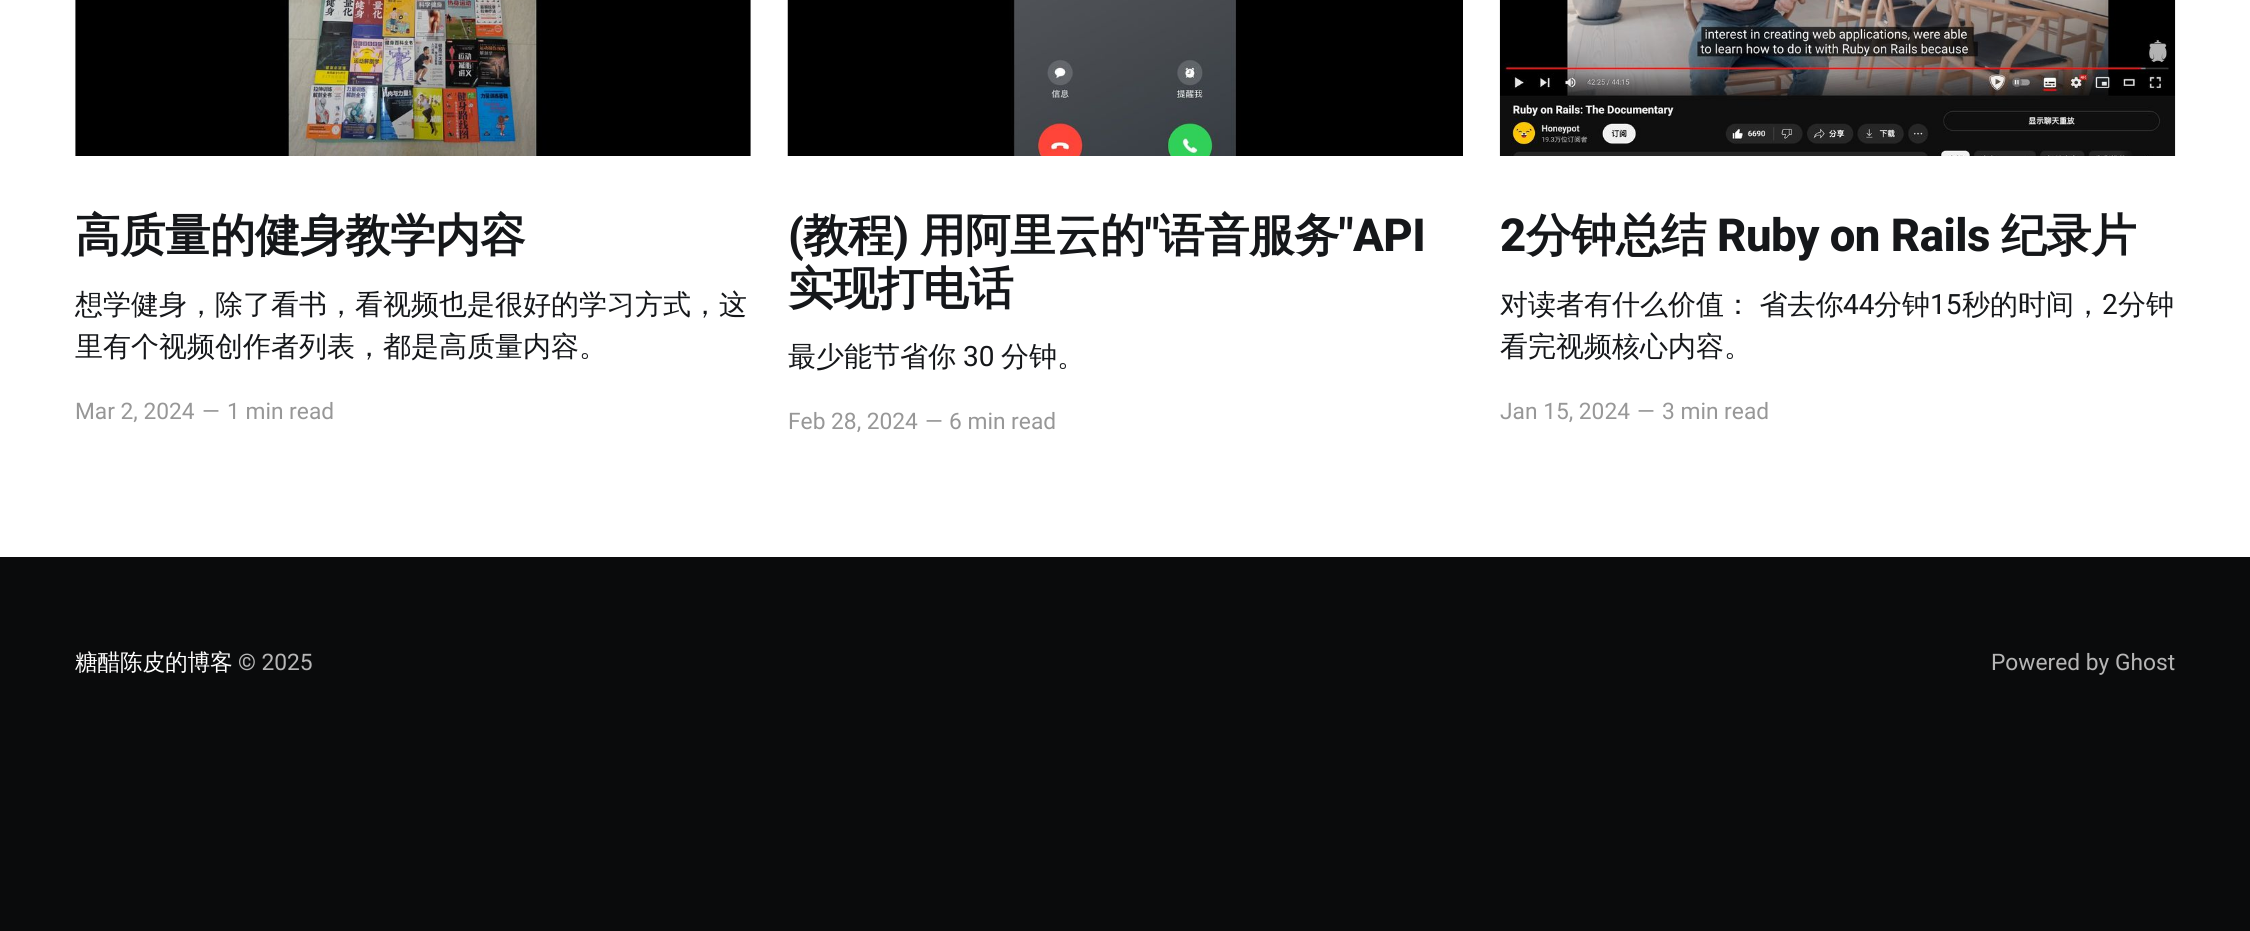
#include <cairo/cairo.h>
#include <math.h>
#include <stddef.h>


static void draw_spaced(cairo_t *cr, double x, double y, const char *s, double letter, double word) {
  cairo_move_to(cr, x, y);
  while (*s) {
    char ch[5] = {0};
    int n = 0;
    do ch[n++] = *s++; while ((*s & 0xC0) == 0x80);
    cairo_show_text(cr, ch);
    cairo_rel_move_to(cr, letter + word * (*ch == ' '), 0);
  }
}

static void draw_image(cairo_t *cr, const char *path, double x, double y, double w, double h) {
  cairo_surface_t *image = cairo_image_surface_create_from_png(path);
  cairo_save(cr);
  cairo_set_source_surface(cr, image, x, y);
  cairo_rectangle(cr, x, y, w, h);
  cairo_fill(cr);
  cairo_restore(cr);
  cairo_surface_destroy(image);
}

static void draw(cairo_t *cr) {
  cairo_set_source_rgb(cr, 1, 1, 1);
  cairo_paint(cr);
  cairo_set_source_rgb(cr, 241 / 255.0, 241 / 255.0, 241 / 255.0);
  cairo_rectangle(cr, 75, 0, 676, 156);
  cairo_fill(cr);
  draw_image(cr, "images/1.png", 75, 0, 676, 156);
  draw_image(cr, "images/2.png", 787, 0, 676, 156);
  draw_image(cr, "images/3.png", 1499, 0, 677, 156);
  cairo_set_source_rgb(cr, 10 / 255.0, 11 / 255.0, 12 / 255.0);
  cairo_rectangle(cr, 0, 557, 2250, 374);
  cairo_fill(cr);
  cairo_select_font_face(cr, "WenQuanYi Zen Hei", CAIRO_FONT_SLANT_NORMAL, CAIRO_FONT_WEIGHT_BOLD);
  cairo_set_font_size(cr, 45.5);
  cairo_set_source_rgb(cr, 21 / 255.0, 23 / 255.0, 26 / 255.0);
  draw_spaced(cr, 75, 251, "高质量的健身教学内容", -0.5, 0);
  cairo_select_font_face(cr, "WenQuanYi Zen Hei Medium", CAIRO_FONT_SLANT_NORMAL, CAIRO_FONT_WEIGHT_NORMAL);
  cairo_set_font_size(cr, 28);
  cairo_move_to(cr, 75, 314);
  cairo_show_text(cr, "想学健身，除了看书，看视频也是很好的学习方式，这");
  cairo_move_to(cr, 75, 356);
  cairo_show_text(cr, "里有个视频创作者列表，都是高质量内容。");
  cairo_select_font_face(cr, "Roboto", CAIRO_FONT_SLANT_NORMAL, CAIRO_FONT_WEIGHT_NORMAL);
  cairo_set_font_size(cr, 22.75);
  cairo_set_source_rgb(cr, 151 / 255.0, 151 / 255.0, 151 / 255.0);
  cairo_move_to(cr, 75, 419);
  cairo_show_text(cr, "Mar 2, 2024");
  cairo_move_to(cr, 202, 419);
  cairo_show_text(cr, "—");
  cairo_move_to(cr, 227, 419);
  cairo_show_text(cr, "1 min read");
  cairo_select_font_face(cr, "Roboto ExtraBold", CAIRO_FONT_SLANT_NORMAL, CAIRO_FONT_WEIGHT_NORMAL);
  cairo_set_font_size(cr, 45.5);
  cairo_set_source_rgb(cr, 21 / 255.0, 23 / 255.0, 26 / 255.0);
  draw_spaced(cr, 788, 251, "(", -0.5, 0);
  cairo_select_font_face(cr, "WenQuanYi Zen Hei", CAIRO_FONT_SLANT_NORMAL, CAIRO_FONT_WEIGHT_BOLD);
  draw_spaced(cr, 803, 251, "教程", -0.5, 0);
  cairo_select_font_face(cr, "Roboto ExtraBold", CAIRO_FONT_SLANT_NORMAL, CAIRO_FONT_WEIGHT_NORMAL);
  draw_spaced(cr, 893, 251, ")", -0.5, 0);
  cairo_select_font_face(cr, "WenQuanYi Zen Hei", CAIRO_FONT_SLANT_NORMAL, CAIRO_FONT_WEIGHT_BOLD);
  draw_spaced(cr, 920, 251, "用阿里云的", -0.5, 0);
  cairo_select_font_face(cr, "Roboto ExtraBold", CAIRO_FONT_SLANT_NORMAL, CAIRO_FONT_WEIGHT_NORMAL);
  draw_spaced(cr, 1145, 251, "\"", -0.5, 0);
  cairo_select_font_face(cr, "WenQuanYi Zen Hei", CAIRO_FONT_SLANT_NORMAL, CAIRO_FONT_WEIGHT_BOLD);
  draw_spaced(cr, 1159, 251, "语音服务", -0.5, 0);
  cairo_select_font_face(cr, "Roboto ExtraBold", CAIRO_FONT_SLANT_NORMAL, CAIRO_FONT_WEIGHT_NORMAL);
  draw_spaced(cr, 1339, 251, "\"API", -0.5, 0);
  cairo_select_font_face(cr, "WenQuanYi Zen Hei", CAIRO_FONT_SLANT_NORMAL, CAIRO_FONT_WEIGHT_BOLD);
  draw_spaced(cr, 788, 304, "实现打电话", -0.5, 0);
  cairo_select_font_face(cr, "WenQuanYi Zen Hei Medium", CAIRO_FONT_SLANT_NORMAL, CAIRO_FONT_WEIGHT_NORMAL);
  cairo_set_font_size(cr, 28);
  cairo_move_to(cr, 788, 366);
  cairo_show_text(cr, "最少能节省你");
  cairo_select_font_face(cr, "Roboto", CAIRO_FONT_SLANT_NORMAL, CAIRO_FONT_WEIGHT_NORMAL);
  cairo_move_to(cr, 963, 366);
  cairo_show_text(cr, "30");
  cairo_select_font_face(cr, "WenQuanYi Zen Hei Medium", CAIRO_FONT_SLANT_NORMAL, CAIRO_FONT_WEIGHT_NORMAL);
  cairo_move_to(cr, 1001, 366);
  cairo_show_text(cr, "分钟。");
  cairo_select_font_face(cr, "Roboto", CAIRO_FONT_SLANT_NORMAL, CAIRO_FONT_WEIGHT_NORMAL);
  cairo_set_font_size(cr, 22.75);
  cairo_set_source_rgb(cr, 151 / 255.0, 151 / 255.0, 151 / 255.0);
  cairo_move_to(cr, 788, 429);
  cairo_show_text(cr, "Feb 28, 2024");
  cairo_move_to(cr, 925, 429);
  cairo_show_text(cr, "—");
  cairo_move_to(cr, 949, 429);
  cairo_show_text(cr, "6 min read");
  cairo_select_font_face(cr, "Roboto ExtraBold", CAIRO_FONT_SLANT_NORMAL, CAIRO_FONT_WEIGHT_NORMAL);
  cairo_set_font_size(cr, 45.5);
  cairo_set_source_rgb(cr, 21 / 255.0, 23 / 255.0, 26 / 255.0);
  draw_spaced(cr, 1500, 251, "2", -0.5, 0);
  cairo_select_font_face(cr, "WenQuanYi Zen Hei", CAIRO_FONT_SLANT_NORMAL, CAIRO_FONT_WEIGHT_BOLD);
  draw_spaced(cr, 1526, 251, "分钟总结", -0.5, 0);
  cairo_select_font_face(cr, "Roboto ExtraBold", CAIRO_FONT_SLANT_NORMAL, CAIRO_FONT_WEIGHT_NORMAL);
  draw_spaced(cr, 1717, 251, "Ruby on Rails", -0.5, 0);
  cairo_select_font_face(cr, "WenQuanYi Zen Hei", CAIRO_FONT_SLANT_NORMAL, CAIRO_FONT_WEIGHT_BOLD);
  draw_spaced(cr, 2001, 251, "纪录片", -0.5, 0);
  cairo_select_font_face(cr, "WenQuanYi Zen Hei Medium", CAIRO_FONT_SLANT_NORMAL, CAIRO_FONT_WEIGHT_NORMAL);
  cairo_set_font_size(cr, 28);
  draw_spaced(cr, 1500, 314, "对读者有什么价值： 省去你", 0, -1);
  cairo_select_font_face(cr, "Roboto", CAIRO_FONT_SLANT_NORMAL, CAIRO_FONT_WEIGHT_NORMAL);
  cairo_move_to(cr, 1843, 314);
  cairo_show_text(cr, "44");
  cairo_select_font_face(cr, "WenQuanYi Zen Hei Medium", CAIRO_FONT_SLANT_NORMAL, CAIRO_FONT_WEIGHT_NORMAL);
  cairo_move_to(cr, 1874, 314);
  cairo_show_text(cr, "分钟");
  cairo_select_font_face(cr, "Roboto", CAIRO_FONT_SLANT_NORMAL, CAIRO_FONT_WEIGHT_NORMAL);
  cairo_move_to(cr, 1930, 314);
  cairo_show_text(cr, "15");
  cairo_select_font_face(cr, "WenQuanYi Zen Hei Medium", CAIRO_FONT_SLANT_NORMAL, CAIRO_FONT_WEIGHT_NORMAL);
  cairo_move_to(cr, 1962, 314);
  cairo_show_text(cr, "秒的时间，");
  cairo_select_font_face(cr, "Roboto", CAIRO_FONT_SLANT_NORMAL, CAIRO_FONT_WEIGHT_NORMAL);
  cairo_move_to(cr, 2102, 314);
  cairo_show_text(cr, "2");
  cairo_select_font_face(cr, "WenQuanYi Zen Hei Medium", CAIRO_FONT_SLANT_NORMAL, CAIRO_FONT_WEIGHT_NORMAL);
  cairo_move_to(cr, 2118, 314);
  cairo_show_text(cr, "分钟");
  cairo_move_to(cr, 1500, 356);
  cairo_show_text(cr, "看完视频核心内容。");
  cairo_select_font_face(cr, "Roboto", CAIRO_FONT_SLANT_NORMAL, CAIRO_FONT_WEIGHT_NORMAL);
  cairo_set_font_size(cr, 22.75);
  cairo_set_source_rgb(cr, 151 / 255.0, 151 / 255.0, 151 / 255.0);
  cairo_move_to(cr, 1500, 419);
  cairo_show_text(cr, "Jan 15, 2024");
  cairo_move_to(cr, 1637, 419);
  cairo_show_text(cr, "—");
  cairo_move_to(cr, 1662, 419);
  cairo_show_text(cr, "3 min read");
  cairo_select_font_face(cr, "WenQuanYi Zen Hei Medium", CAIRO_FONT_SLANT_NORMAL, CAIRO_FONT_WEIGHT_NORMAL);
  cairo_set_source_rgb(cr, 1, 1, 1);
  draw_spaced(cr, 75, 670, "糖醋陈皮的博客", -0.25, 0);
  cairo_select_font_face(cr, "Roboto", CAIRO_FONT_SLANT_NORMAL, CAIRO_FONT_WEIGHT_NORMAL);
  cairo_set_source_rgb(cr, 182 / 255.0, 182 / 255.0, 182 / 255.0);
  cairo_move_to(cr, 238, 670);
  cairo_show_text(cr, "© 2025");
  cairo_move_to(cr, 1991, 670);
  cairo_show_text(cr, "Powered by Ghost");
}

int main(void) {
  cairo_surface_t *surface = cairo_image_surface_create(CAIRO_FORMAT_RGB24, 2250, 931);
  cairo_t *cr = cairo_create(surface);
  cairo_font_options_t *options = cairo_font_options_create();
  cairo_font_options_set_hint_metrics(options, CAIRO_HINT_METRICS_OFF);
  cairo_font_options_set_hint_style(options, CAIRO_HINT_STYLE_NONE);
  cairo_set_font_options(cr, options);
  cairo_set_miter_limit(cr, 4);
  draw(cr);
  cairo_surface_write_to_png(surface, "out.png");
  cairo_font_options_destroy(options);
  cairo_destroy(cr);
  cairo_surface_destroy(surface);
  return 0;
}
